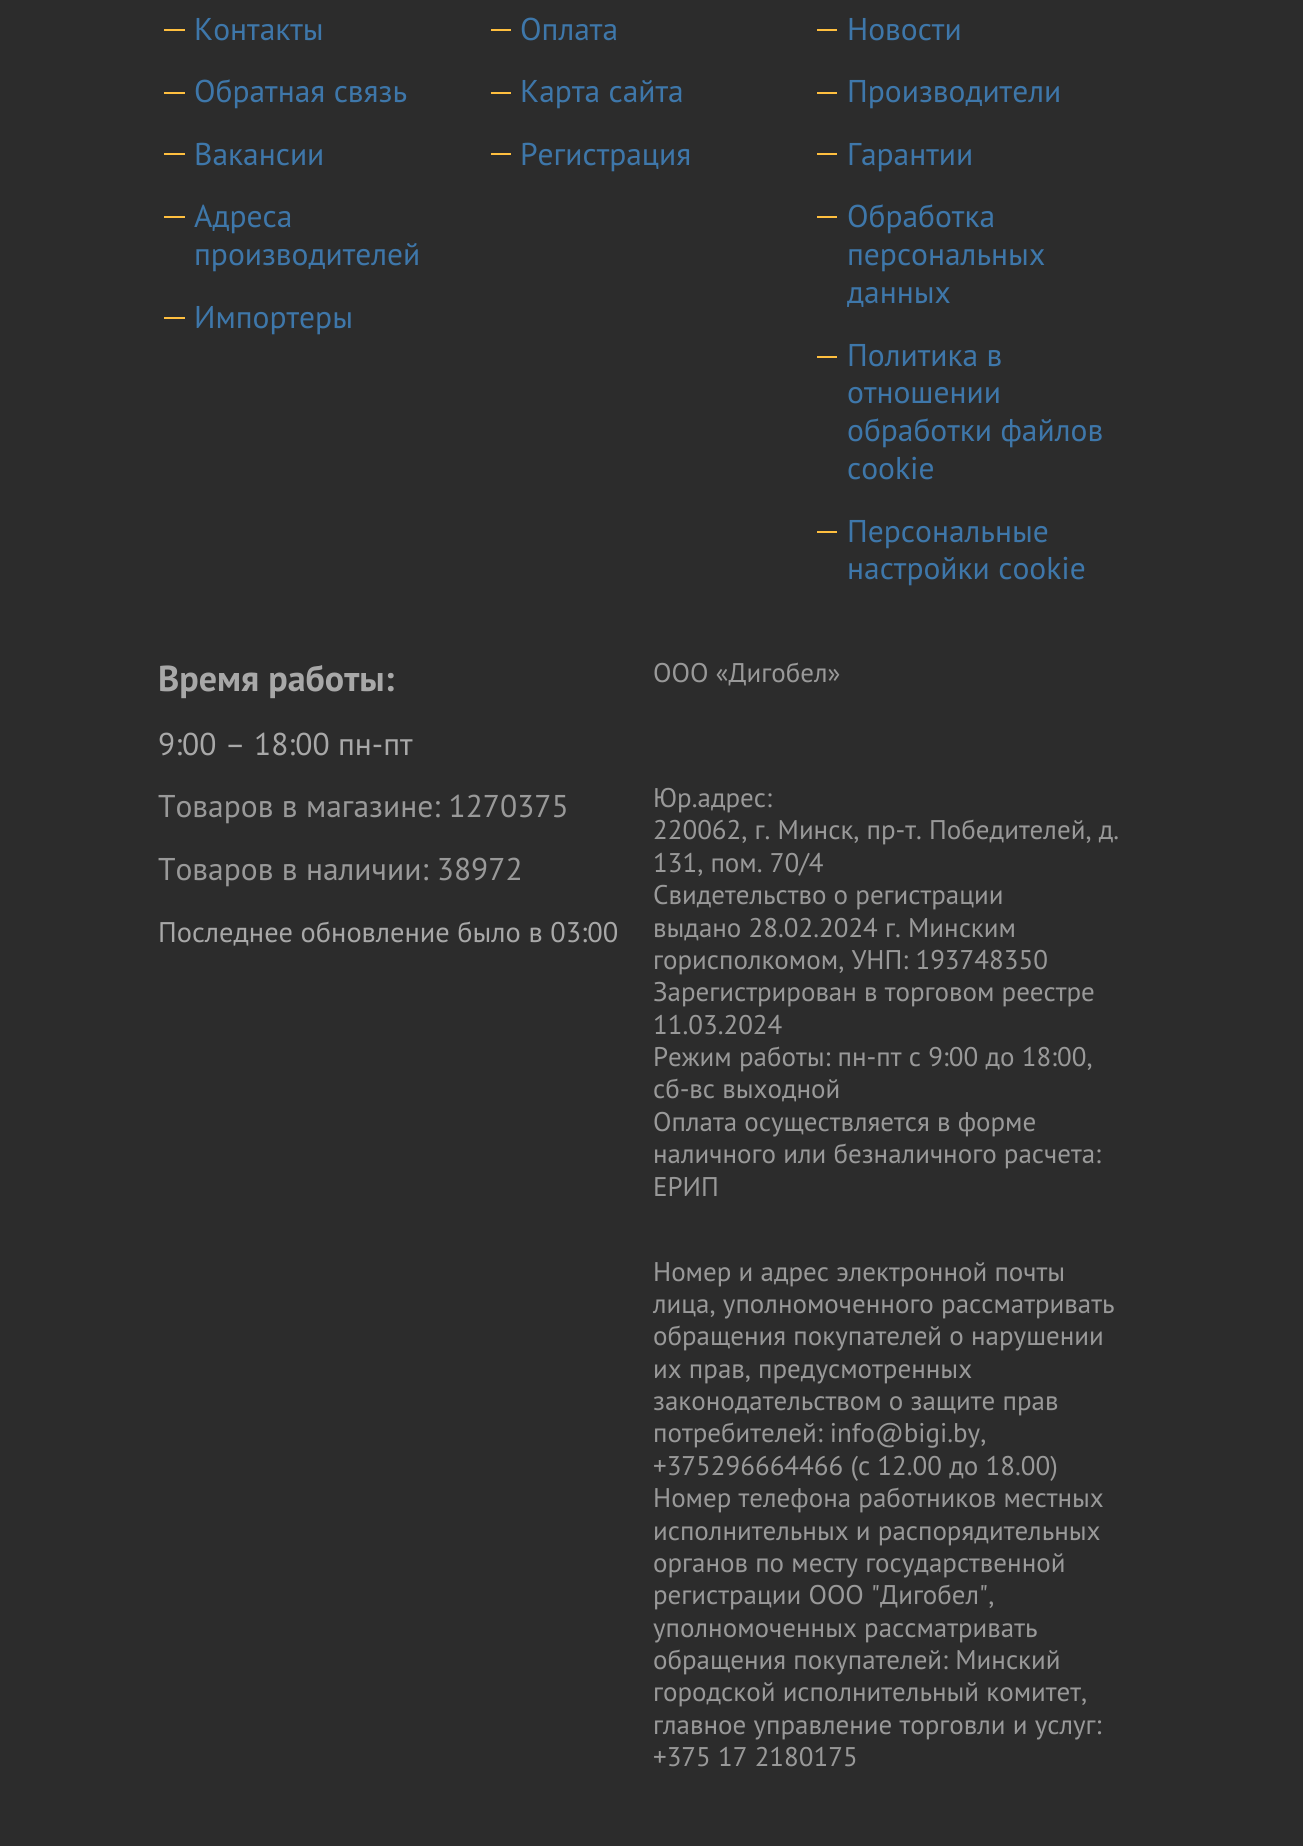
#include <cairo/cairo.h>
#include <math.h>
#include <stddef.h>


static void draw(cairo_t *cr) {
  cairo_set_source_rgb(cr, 44 / 255.0, 44 / 255.0, 44 / 255.0);
  cairo_paint(cr);
  cairo_set_source_rgb(cr, 1, 191 / 255.0, 63 / 255.0);
  cairo_rectangle(cr, 164, 29, 21, 2);
  cairo_fill(cr);
  cairo_rectangle(cr, 164, 92, 21, 2);
  cairo_fill(cr);
  cairo_rectangle(cr, 164, 153, 21, 2);
  cairo_fill(cr);
  cairo_rectangle(cr, 164, 216, 21, 2);
  cairo_fill(cr);
  cairo_rectangle(cr, 164, 317, 21, 2);
  cairo_fill(cr);
  cairo_rectangle(cr, 491, 29, 20, 2);
  cairo_fill(cr);
  cairo_rectangle(cr, 491, 92, 20, 2);
  cairo_fill(cr);
  cairo_rectangle(cr, 491, 153, 20, 2);
  cairo_fill(cr);
  cairo_rectangle(cr, 817, 29, 20, 2);
  cairo_fill(cr);
  cairo_rectangle(cr, 817, 92, 20, 2);
  cairo_fill(cr);
  cairo_rectangle(cr, 817, 153, 20, 2);
  cairo_fill(cr);
  cairo_rectangle(cr, 817, 216, 20, 2);
  cairo_fill(cr);
  cairo_rectangle(cr, 817, 356, 20, 2);
  cairo_fill(cr);
  cairo_rectangle(cr, 817, 531, 20, 2);
  cairo_fill(cr);
  cairo_select_font_face(cr, "PT Sans", CAIRO_FONT_SLANT_NORMAL, CAIRO_FONT_WEIGHT_NORMAL);
  cairo_set_font_size(cr, 31.5);
  cairo_set_source_rgb(cr, 62 / 255.0, 119 / 255.0, 170 / 255.0);
  cairo_move_to(cr, 194, 40);
  cairo_show_text(cr, "Контакты");
  cairo_move_to(cr, 194, 102);
  cairo_show_text(cr, "Обратная связь");
  cairo_move_to(cr, 194, 165);
  cairo_show_text(cr, "Вакансии");
  cairo_move_to(cr, 194, 227);
  cairo_show_text(cr, "Адреса");
  cairo_move_to(cr, 194, 265);
  cairo_show_text(cr, "производителей");
  cairo_move_to(cr, 194, 328);
  cairo_show_text(cr, "Импортеры");
  cairo_move_to(cr, 520, 40);
  cairo_show_text(cr, "Оплата");
  cairo_move_to(cr, 520, 102);
  cairo_show_text(cr, "Карта сайта");
  cairo_move_to(cr, 520, 165);
  cairo_show_text(cr, "Регистрация");
  cairo_move_to(cr, 847, 40);
  cairo_show_text(cr, "Новости");
  cairo_move_to(cr, 847, 102);
  cairo_show_text(cr, "Производители");
  cairo_move_to(cr, 847, 165);
  cairo_show_text(cr, "Гарантии");
  cairo_move_to(cr, 847, 227);
  cairo_show_text(cr, "Обработка");
  cairo_move_to(cr, 847, 265);
  cairo_show_text(cr, "персональных");
  cairo_move_to(cr, 847, 303);
  cairo_show_text(cr, "данных");
  cairo_move_to(cr, 847, 366);
  cairo_show_text(cr, "Политика в");
  cairo_move_to(cr, 847, 403);
  cairo_show_text(cr, "отношении");
  cairo_move_to(cr, 847, 441);
  cairo_show_text(cr, "обработки файлов");
  cairo_move_to(cr, 847, 479);
  cairo_show_text(cr, "cookie");
  cairo_move_to(cr, 847, 542);
  cairo_show_text(cr, "Персональные");
  cairo_move_to(cr, 847, 579);
  cairo_show_text(cr, "настройки cookie");
  cairo_select_font_face(cr, "PT Sans", CAIRO_FONT_SLANT_NORMAL, CAIRO_FONT_WEIGHT_BOLD);
  cairo_set_font_size(cr, 36);
  cairo_set_source_rgb(cr, 168 / 255.0, 168 / 255.0, 168 / 255.0);
  cairo_move_to(cr, 158, 691);
  cairo_show_text(cr, "Время работы:");
  cairo_select_font_face(cr, "PT Sans", CAIRO_FONT_SLANT_NORMAL, CAIRO_FONT_WEIGHT_NORMAL);
  cairo_set_font_size(cr, 31.5);
  cairo_move_to(cr, 158, 755);
  cairo_show_text(cr, "9:00 – 18:00 пн-пт");
  cairo_set_source_rgb(cr, 153 / 255.0, 153 / 255.0, 153 / 255.0);
  cairo_move_to(cr, 158, 817);
  cairo_show_text(cr, "Товаров в магазине: 1270375");
  cairo_move_to(cr, 158, 880);
  cairo_show_text(cr, "Товаров в наличии: 38972");
  cairo_set_font_size(cr, 28.4);
  cairo_set_source_rgb(cr, 168 / 255.0, 168 / 255.0, 168 / 255.0);
  cairo_move_to(cr, 158, 942);
  cairo_show_text(cr, "Последнее обновление было в 03:00");
  cairo_set_font_size(cr, 27);
  cairo_set_source_rgb(cr, 153 / 255.0, 153 / 255.0, 153 / 255.0);
  cairo_move_to(cr, 653, 682);
  cairo_show_text(cr, "ООО «Дигобел»");
  cairo_move_to(cr, 653, 807);
  cairo_show_text(cr, "Юр.адрес:");
  cairo_move_to(cr, 653, 839);
  cairo_show_text(cr, "220062, г. Минск, пр-т. Победителей, д.");
  cairo_move_to(cr, 653, 872);
  cairo_show_text(cr, "131, пом. 70/4");
  cairo_move_to(cr, 653, 904);
  cairo_show_text(cr, "Свидетельство о регистрации");
  cairo_move_to(cr, 653, 937);
  cairo_show_text(cr, "выдано 28.02.2024 г. Минским");
  cairo_move_to(cr, 653, 969);
  cairo_show_text(cr, "горисполкомом, УНП: 193748350");
  cairo_move_to(cr, 653, 1001);
  cairo_show_text(cr, "Зарегистрирован в торговом реестре");
  cairo_move_to(cr, 653, 1034);
  cairo_show_text(cr, "11.03.2024");
  cairo_move_to(cr, 653, 1066);
  cairo_show_text(cr, "Режим работы: пн-пт с 9:00 до 18:00,");
  cairo_move_to(cr, 653, 1098);
  cairo_show_text(cr, "сб-вс выходной");
  cairo_move_to(cr, 653, 1131);
  cairo_show_text(cr, "Оплата осуществляется в форме");
  cairo_move_to(cr, 653, 1163);
  cairo_show_text(cr, "наличного или безналичного расчета:");
  cairo_move_to(cr, 653, 1196);
  cairo_show_text(cr, "ЕРИП");
  cairo_move_to(cr, 653, 1281);
  cairo_show_text(cr, "Номер и адрес электронной почты");
  cairo_move_to(cr, 653, 1313);
  cairo_show_text(cr, "лица, уполномоченного рассматривать");
  cairo_move_to(cr, 653, 1345);
  cairo_show_text(cr, "обращения покупателей о нарушении");
  cairo_move_to(cr, 653, 1378);
  cairo_show_text(cr, "их прав, предусмотренных");
  cairo_move_to(cr, 653, 1410);
  cairo_show_text(cr, "законодательством о защите прав");
  cairo_move_to(cr, 653, 1442);
  cairo_show_text(cr, "потребителей: info@bigi.by,");
  cairo_move_to(cr, 653, 1475);
  cairo_show_text(cr, "+375296664466 (с 12.00 до 18.00)");
  cairo_move_to(cr, 653, 1507);
  cairo_show_text(cr, "Номер телефона работников местных");
  cairo_move_to(cr, 653, 1540);
  cairo_show_text(cr, "исполнительных и распорядительных");
  cairo_move_to(cr, 653, 1572);
  cairo_show_text(cr, "органов по месту государственной");
  cairo_move_to(cr, 653, 1604);
  cairo_show_text(cr, "регистрации ООО \"Дигобел\",");
  cairo_move_to(cr, 653, 1637);
  cairo_show_text(cr, "уполномоченных рассматривать");
  cairo_move_to(cr, 653, 1669);
  cairo_show_text(cr, "обращения покупателей: Минский");
  cairo_move_to(cr, 653, 1701);
  cairo_show_text(cr, "городской исполнительный комитет,");
  cairo_move_to(cr, 653, 1734);
  cairo_show_text(cr, "главное управление торговли и услуг:");
  cairo_move_to(cr, 653, 1766);
  cairo_show_text(cr, "+375 17 2180175");
}

int main(void) {
  cairo_surface_t *surface = cairo_image_surface_create(CAIRO_FORMAT_RGB24, 1303, 1846);
  cairo_t *cr = cairo_create(surface);
  cairo_font_options_t *options = cairo_font_options_create();
  cairo_font_options_set_hint_metrics(options, CAIRO_HINT_METRICS_OFF);
  cairo_font_options_set_hint_style(options, CAIRO_HINT_STYLE_NONE);
  cairo_set_font_options(cr, options);
  cairo_set_miter_limit(cr, 4);
  draw(cr);
  cairo_surface_write_to_png(surface, "out.png");
  cairo_font_options_destroy(options);
  cairo_destroy(cr);
  cairo_surface_destroy(surface);
  return 0;
}
